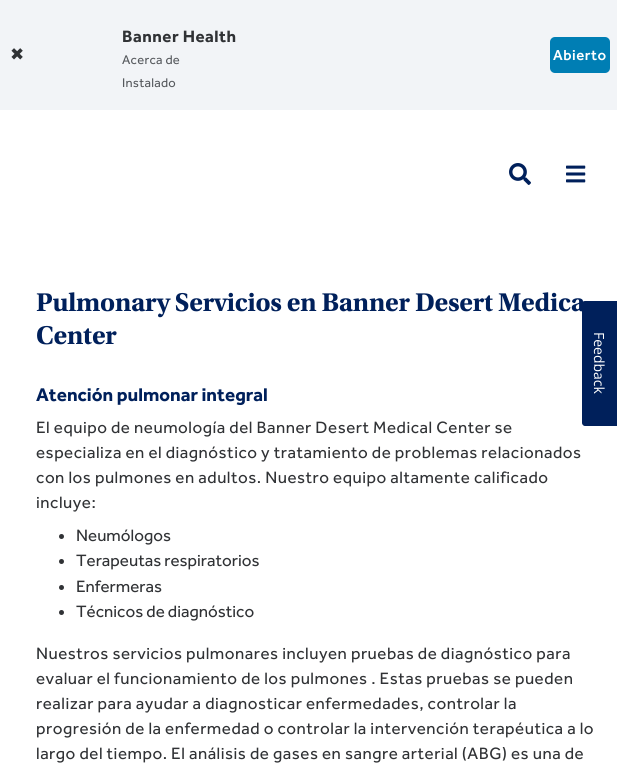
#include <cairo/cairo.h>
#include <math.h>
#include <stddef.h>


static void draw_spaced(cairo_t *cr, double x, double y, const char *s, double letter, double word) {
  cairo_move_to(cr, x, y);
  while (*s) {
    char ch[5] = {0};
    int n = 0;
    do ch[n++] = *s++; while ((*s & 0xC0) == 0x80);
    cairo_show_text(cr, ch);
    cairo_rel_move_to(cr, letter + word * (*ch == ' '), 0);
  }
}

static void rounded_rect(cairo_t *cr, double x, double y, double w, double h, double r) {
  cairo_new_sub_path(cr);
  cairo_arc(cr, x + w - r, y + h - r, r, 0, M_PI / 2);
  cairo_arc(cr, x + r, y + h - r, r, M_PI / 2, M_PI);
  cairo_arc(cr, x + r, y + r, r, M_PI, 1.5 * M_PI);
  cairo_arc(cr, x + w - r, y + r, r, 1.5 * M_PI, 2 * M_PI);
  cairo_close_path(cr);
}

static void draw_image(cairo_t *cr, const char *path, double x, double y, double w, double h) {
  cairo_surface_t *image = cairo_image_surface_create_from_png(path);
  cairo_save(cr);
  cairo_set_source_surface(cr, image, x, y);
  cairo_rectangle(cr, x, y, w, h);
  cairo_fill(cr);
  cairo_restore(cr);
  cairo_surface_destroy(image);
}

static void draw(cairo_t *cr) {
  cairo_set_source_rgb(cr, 1, 1, 1);
  cairo_paint(cr);
  cairo_set_source_rgb(cr, 242 / 255.0, 244 / 255.0, 247 / 255.0);
  cairo_rectangle(cr, 0, 0, 617, 110);
  cairo_fill(cr);
  cairo_set_source_rgb(cr, 0, 126 / 255.0, 180 / 255.0);
  rounded_rect(cr, 550, 37, 60, 36, 5);
  cairo_fill(cr);
  draw_image(cr, "images/1.png", 509, 163, 22, 22);
  draw_image(cr, "images/2.png", 566, 165, 20, 18);
  cairo_set_source_rgb(cr, 48 / 255.0, 50 / 255.0, 53 / 255.0);
  cairo_arc(cr, 61.5, 536.5, 2.5, 0, 2 * M_PI);
  cairo_fill(cr);
  cairo_arc(cr, 61.5, 561.5, 2.5, 0, 2 * M_PI);
  cairo_fill(cr);
  cairo_arc(cr, 61.5, 587.5, 2.5, 0, 2 * M_PI);
  cairo_fill(cr);
  cairo_arc(cr, 61.5, 612.5, 2.5, 0, 2 * M_PI);
  cairo_fill(cr);
  cairo_set_source_rgb(cr, 0, 32 / 255.0, 91 / 255.0);
  cairo_new_path(cr);
  cairo_move_to(cr, 617, 301);
  cairo_line_to(cr, 617, 426);
  cairo_line_to(cr, 585, 426);
  cairo_curve_to(cr, 583, 426, 582, 424, 582, 423);
  cairo_line_to(cr, 582, 304);
  cairo_curve_to(cr, 582, 302, 583, 301, 585, 301);
  cairo_close_path(cr);
  cairo_fill(cr);
  cairo_select_font_face(cr, "DejaVu Sans", CAIRO_FONT_SLANT_NORMAL, CAIRO_FONT_WEIGHT_NORMAL);
  cairo_set_font_size(cr, 17);
  cairo_set_source_rgb(cr, 48 / 255.0, 50 / 255.0, 53 / 255.0);
  cairo_move_to(cr, 10, 60);
  cairo_show_text(cr, "✖");
  cairo_select_font_face(cr, "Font", CAIRO_FONT_SLANT_NORMAL, CAIRO_FONT_WEIGHT_BOLD);
  draw_spaced(cr, 122, 42, "Banner Health", 0.5, 0);
  cairo_select_font_face(cr, "Font", CAIRO_FONT_SLANT_NORMAL, CAIRO_FONT_WEIGHT_NORMAL);
  cairo_set_font_size(cr, 13);
  cairo_set_source_rgb(cr, 86 / 255.0, 89 / 255.0, 93 / 255.0);
  draw_spaced(cr, 122, 64, "Acerca de", 0.25, 0);
  draw_spaced(cr, 122, 87, "Instalado", 0.25, 0);
  cairo_select_font_face(cr, "Font Medium", CAIRO_FONT_SLANT_NORMAL, CAIRO_FONT_WEIGHT_NORMAL);
  cairo_set_font_size(cr, 15);
  cairo_set_source_rgb(cr, 1, 1, 1);
  draw_spaced(cr, 553, 60, "Abierto", 0.5, 0);
  cairo_select_font_face(cr, "Utopia", CAIRO_FONT_SLANT_NORMAL, CAIRO_FONT_WEIGHT_BOLD);
  cairo_set_font_size(cr, 27);
  cairo_set_source_rgb(cr, 0, 32 / 255.0, 91 / 255.0);
  draw_spaced(cr, 36, 311, "Pulmonary Servicios en Banner Desert Medica", -0.25, 0);
  draw_spaced(cr, 36, 344, "Center", -0.25, 0);
  cairo_select_font_face(cr, "Font", CAIRO_FONT_SLANT_NORMAL, CAIRO_FONT_WEIGHT_BOLD);
  cairo_set_font_size(cr, 19);
  cairo_move_to(cr, 36, 401);
  cairo_show_text(cr, "Atención pulmonar integral");
  cairo_select_font_face(cr, "Font", CAIRO_FONT_SLANT_NORMAL, CAIRO_FONT_WEIGHT_NORMAL);
  cairo_set_font_size(cr, 17);
  cairo_set_source_rgb(cr, 48 / 255.0, 50 / 255.0, 53 / 255.0);
  draw_spaced(cr, 36, 433, "El equipo de neumología del Banner Desert Medical Center se", 0.5, 0);
  draw_spaced(cr, 36, 458, "especializa en el diagnóstico y tratamiento de problemas relacionados", 0.5, 0);
  draw_spaced(cr, 36, 483, "con los pulmones en adultos. Nuestro equipo altamente calificado", 0.5, 0);
  draw_spaced(cr, 36, 508, "incluye:", 0.5, 0);
  cairo_move_to(cr, 76, 541);
  cairo_show_text(cr, "Neumólogos");
  cairo_move_to(cr, 76, 566);
  cairo_show_text(cr, "Terapeutas respiratorios");
  cairo_move_to(cr, 76, 592);
  cairo_show_text(cr, "Enfermeras");
  cairo_move_to(cr, 76, 617);
  cairo_show_text(cr, "Técnicos de diagnóstico");
  draw_spaced(cr, 36, 659, "Nuestros servicios pulmonares incluyen pruebas de diagnóstico para", 0.5, 0);
  draw_spaced(cr, 36, 684, "evaluar el funcionamiento de los pulmones . Estas pruebas se pueden", 0.5, 0);
  draw_spaced(cr, 36, 709, "realizar para ayudar a diagnosticar enfermedades, controlar la", 0.5, 0);
  draw_spaced(cr, 36, 734, "progresión de la enfermedad o controlar la intervención terapéutica a lo", 0.5, 0);
  draw_spaced(cr, 36, 759, "largo del tiempo. El análisis de gases en sangre arterial (ABG) es una de", 0.5, 0);
  cairo_select_font_face(cr, "Open Sans", CAIRO_FONT_SLANT_NORMAL, CAIRO_FONT_WEIGHT_NORMAL);
  cairo_set_font_size(cr, 14);
  cairo_set_source_rgb(cr, 1, 1, 1);
  cairo_save(cr);
  cairo_translate(cr, 594, 332);
  cairo_rotate(cr, 90 * M_PI / 180);
  cairo_move_to(cr, 0, 0);
  cairo_show_text(cr, "Feedback");
  cairo_restore(cr);
}

int main(void) {
  cairo_surface_t *surface = cairo_image_surface_create(CAIRO_FORMAT_RGB24, 617, 768);
  cairo_t *cr = cairo_create(surface);
  cairo_font_options_t *options = cairo_font_options_create();
  cairo_font_options_set_hint_metrics(options, CAIRO_HINT_METRICS_OFF);
  cairo_font_options_set_hint_style(options, CAIRO_HINT_STYLE_NONE);
  cairo_set_font_options(cr, options);
  cairo_set_miter_limit(cr, 4);
  draw(cr);
  cairo_surface_write_to_png(surface, "out.png");
  cairo_font_options_destroy(options);
  cairo_destroy(cr);
  cairo_surface_destroy(surface);
  return 0;
}
